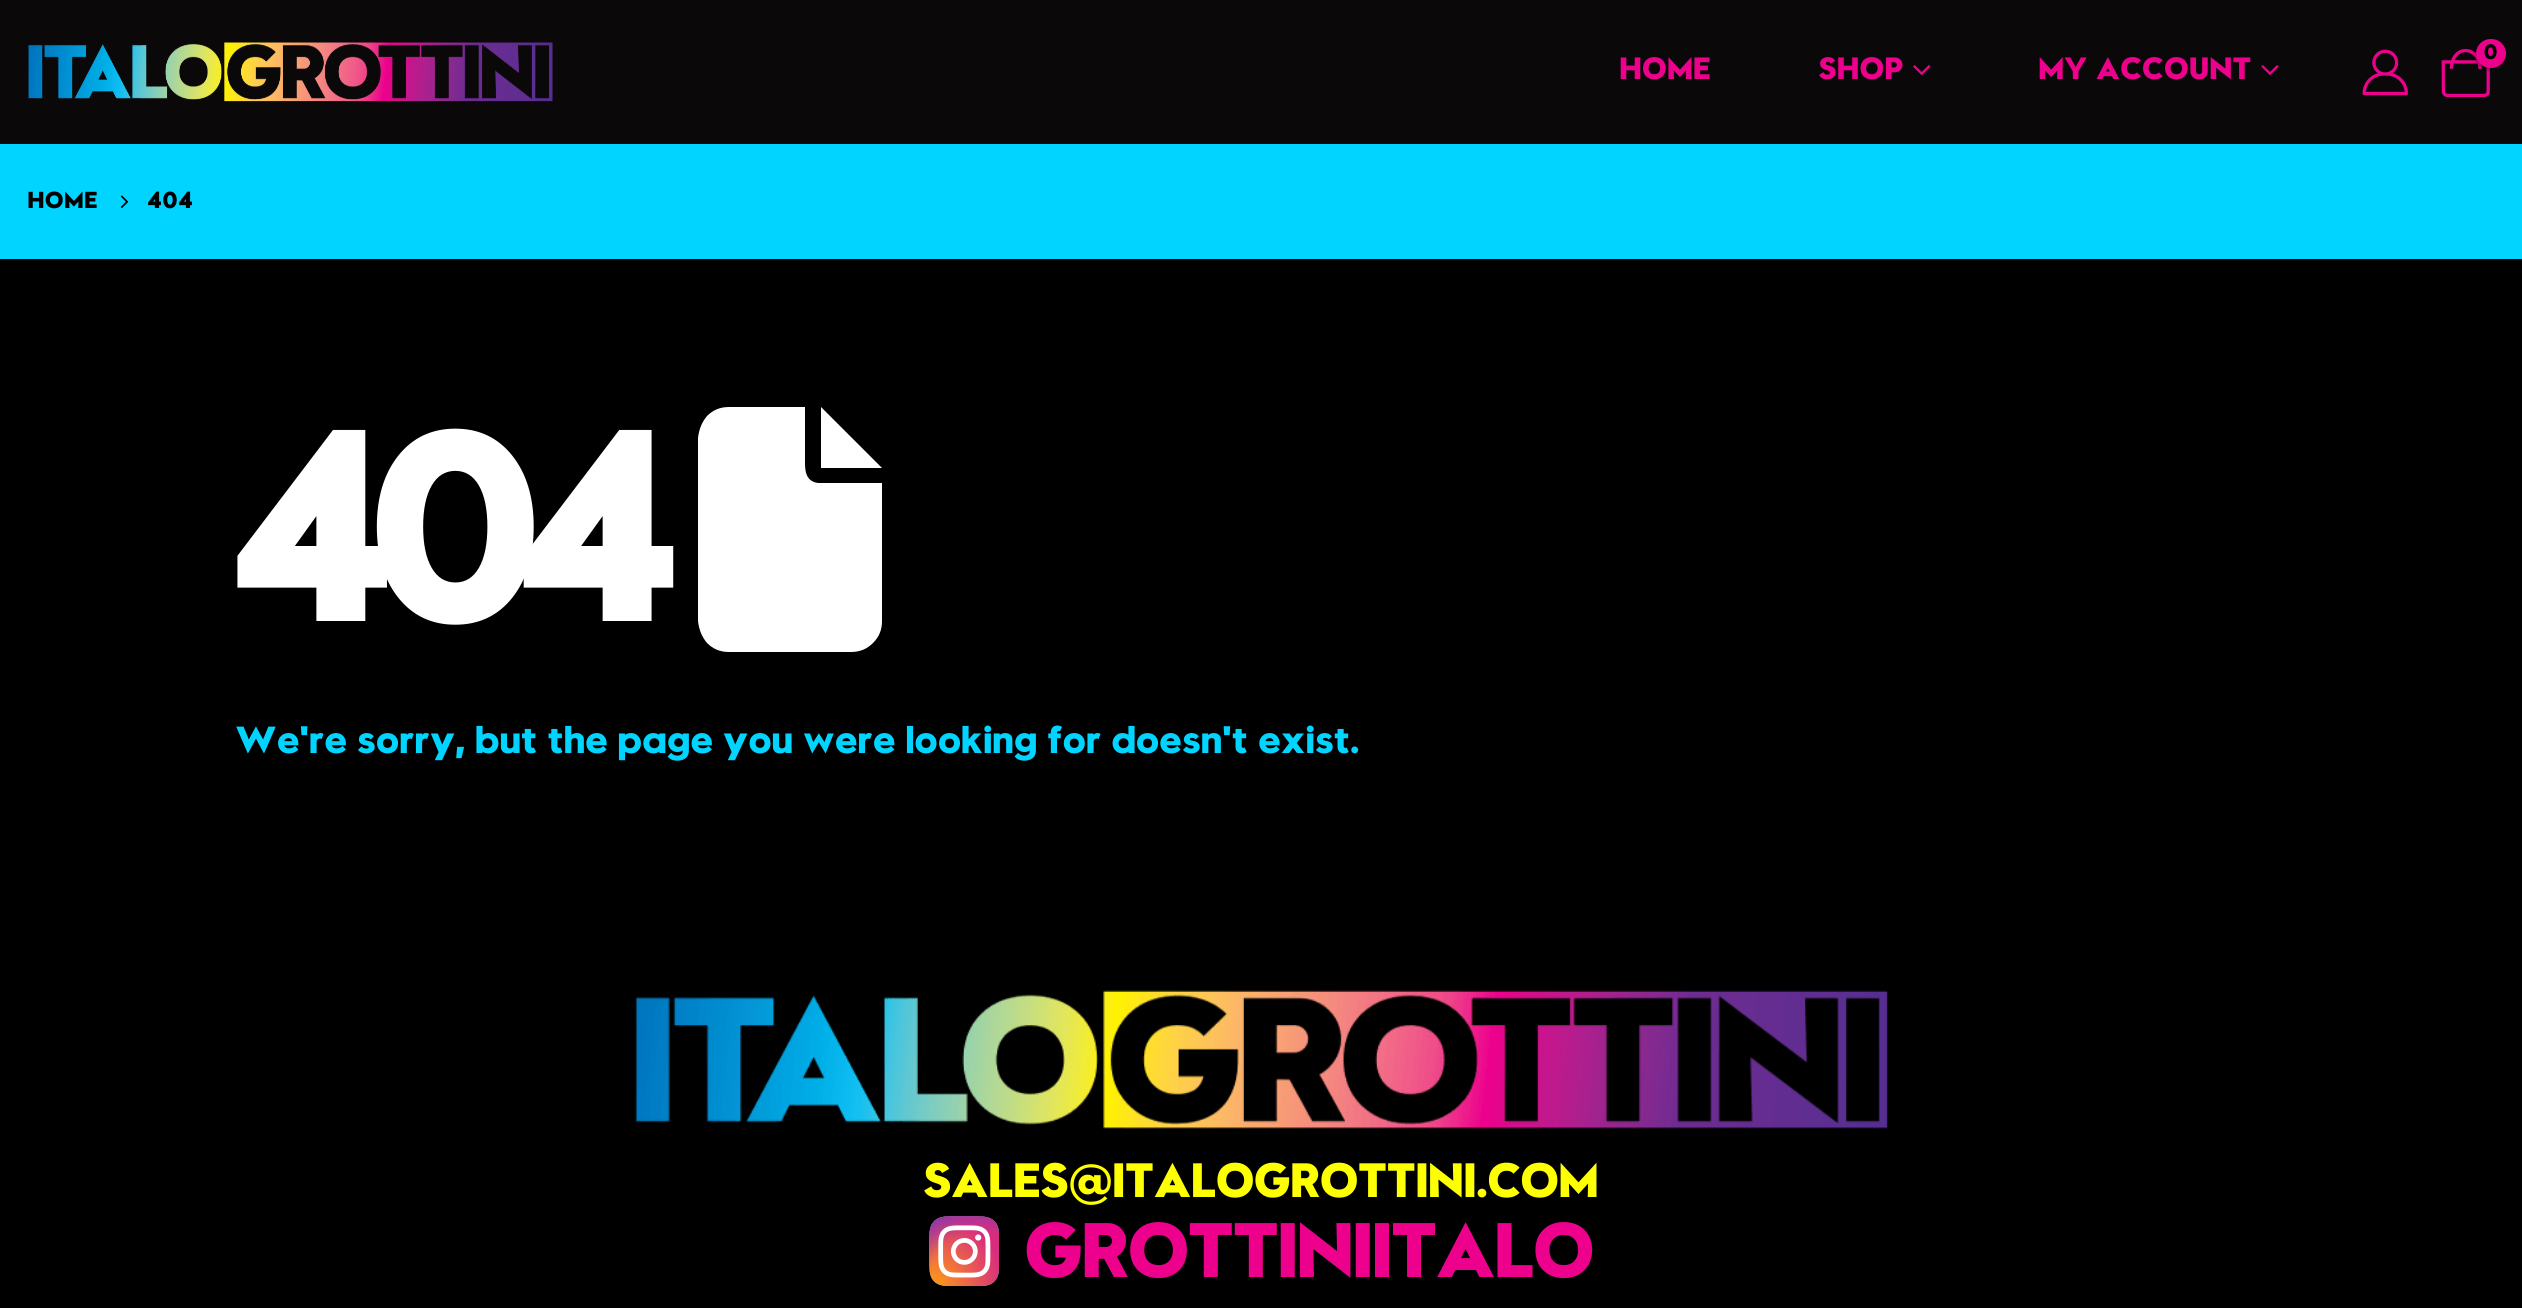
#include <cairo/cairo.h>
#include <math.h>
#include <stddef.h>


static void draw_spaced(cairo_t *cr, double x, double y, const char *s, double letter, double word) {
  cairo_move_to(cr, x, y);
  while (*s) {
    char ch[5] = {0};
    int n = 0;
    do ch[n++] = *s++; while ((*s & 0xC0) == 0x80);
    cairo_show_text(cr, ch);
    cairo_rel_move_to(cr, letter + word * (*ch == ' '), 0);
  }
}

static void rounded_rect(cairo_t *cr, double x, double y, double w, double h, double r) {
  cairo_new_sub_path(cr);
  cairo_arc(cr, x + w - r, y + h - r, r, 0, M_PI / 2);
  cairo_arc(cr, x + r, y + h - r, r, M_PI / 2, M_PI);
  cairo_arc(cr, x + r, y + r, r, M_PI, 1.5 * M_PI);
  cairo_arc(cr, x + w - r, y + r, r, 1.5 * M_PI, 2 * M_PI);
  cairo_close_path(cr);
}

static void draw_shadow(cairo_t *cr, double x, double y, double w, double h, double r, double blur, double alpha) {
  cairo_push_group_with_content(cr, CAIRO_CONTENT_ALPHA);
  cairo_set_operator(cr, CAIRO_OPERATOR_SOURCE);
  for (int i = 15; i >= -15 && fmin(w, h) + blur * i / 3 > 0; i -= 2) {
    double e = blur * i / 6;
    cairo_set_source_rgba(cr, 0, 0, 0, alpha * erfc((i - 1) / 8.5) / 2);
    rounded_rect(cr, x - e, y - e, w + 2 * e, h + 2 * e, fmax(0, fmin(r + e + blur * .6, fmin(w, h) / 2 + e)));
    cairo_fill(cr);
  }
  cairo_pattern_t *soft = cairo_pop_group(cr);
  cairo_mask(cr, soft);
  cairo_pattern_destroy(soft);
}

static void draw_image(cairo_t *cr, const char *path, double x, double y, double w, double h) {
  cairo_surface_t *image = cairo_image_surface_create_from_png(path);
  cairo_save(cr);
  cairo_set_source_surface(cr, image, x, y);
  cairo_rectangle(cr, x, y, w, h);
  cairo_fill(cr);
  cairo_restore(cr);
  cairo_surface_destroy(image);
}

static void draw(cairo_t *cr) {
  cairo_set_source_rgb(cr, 0, 0, 0);
  cairo_paint(cr);
  cairo_set_source_rgb(cr, 10 / 255.0, 8 / 255.0, 8 / 255.0);
  cairo_rectangle(cr, 0, 0, 2522, 144);
  cairo_fill(cr);
  draw_image(cr, "images/1.png", 28, 42, 525, 60);
  draw_image(cr, "images/2.png", 1913, 65, 18, 11);
  draw_image(cr, "images/3.png", 2261, 65, 18, 10);
  draw_image(cr, "images/4.png", 2362, 49, 46, 47);
  draw_image(cr, "images/5.png", 2441, 49, 49, 49);
  cairo_set_source_rgb(cr, 0, 0, 0);
  draw_shadow(cr, 2475, 40, 29, 30, 14.5, 2, 0.3);
  cairo_set_source_rgb(cr, 236 / 255.0, 0, 140 / 255.0);
  rounded_rect(cr, 2476, 39, 30, 29, 14.5);
  cairo_fill(cr);
  cairo_set_source_rgb(cr, 0, 212 / 255.0, 1);
  cairo_rectangle(cr, 0, 144, 2522, 115);
  cairo_fill(cr);
  draw_image(cr, "images/6.png", 120, 195, 9, 13);
  cairo_set_source_rgb(cr, 1, 1, 1);
  cairo_new_path(cr);
  cairo_move_to(cr, 698, 438);
  cairo_curve_to(cr, 699, 429, 702, 422, 707, 416);
  cairo_curve_to(cr, 713, 410, 720, 407, 729, 407);
  cairo_line_to(cr, 805, 407);
  cairo_line_to(cr, 805, 458);
  cairo_curve_to(cr, 805, 468, 804, 481, 818, 483);
  cairo_line_to(cr, 882, 483);
  cairo_line_to(cr, 882, 621);
  cairo_curve_to(cr, 882, 630, 879, 637, 873, 643);
  cairo_curve_to(cr, 867, 649, 860, 652, 851, 652);
  cairo_line_to(cr, 729, 652);
  cairo_curve_to(cr, 720, 652, 713, 649, 707, 643);
  cairo_curve_to(cr, 702, 637, 699, 630, 698, 621);
  cairo_close_path(cr);
  cairo_move_to(cr, 882, 468);
  cairo_line_to(cr, 821, 468);
  cairo_line_to(cr, 821, 407);
  cairo_close_path(cr);
  cairo_fill(cr);
  draw_image(cr, "images/7.png", 635, 990, 1254, 139);
  draw_image(cr, "images/8.png", 929, 1216, 70, 70);
  cairo_select_font_face(cr, "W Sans", CAIRO_FONT_SLANT_NORMAL, CAIRO_FONT_WEIGHT_BOLD);
  cairo_set_font_size(cr, 28);
  cairo_set_source_rgb(cr, 236 / 255.0, 0, 140 / 255.0);
  draw_spaced(cr, 1620, 79, "HOME", 1.75, 0);
  draw_spaced(cr, 1819, 79, "SHOP", 1.75, 0);
  draw_spaced(cr, 2039, 79, "MY ACCOUNT", 1.75, 0);
  cairo_set_font_size(cr, 19);
  cairo_set_source_rgb(cr, 0, 0, 0);
  draw_spaced(cr, 2484, 59, "0", 1.75, 0);
  cairo_set_font_size(cr, 21);
  draw_spaced(cr, 28, 208, "HOME", 1.75, 0);
  draw_spaced(cr, 148, 208, "404", 1.75, 0);
  cairo_set_font_size(cr, 245);
  cairo_set_source_rgb(cr, 1, 1, 1);
  draw_spaced(cr, 236, 621, "404", -17.5, 0);
  cairo_set_font_size(cr, 34.3);
  cairo_set_source_rgb(cr, 0, 212 / 255.0, 1);
  draw_spaced(cr, 236, 753, "We're sorry, but the page you were looking for doesn't exist.", 1.75, 0);
  cairo_set_font_size(cr, 43.75);
  cairo_set_source_rgb(cr, 254 / 255.0, 1, 0);
  draw_spaced(cr, 924, 1197, "SALES@ITALOGROTTINI.COM", 1.75, 0);
  cairo_set_font_size(cr, 70);
  cairo_set_source_rgb(cr, 236 / 255.0, 0, 140 / 255.0);
  draw_spaced(cr, 1026, 1277, "GROTTINIITALO", 1.75, 0);
}

int main(void) {
  cairo_surface_t *surface = cairo_image_surface_create(CAIRO_FORMAT_RGB24, 2522, 1308);
  cairo_t *cr = cairo_create(surface);
  cairo_font_options_t *options = cairo_font_options_create();
  cairo_font_options_set_hint_metrics(options, CAIRO_HINT_METRICS_OFF);
  cairo_font_options_set_hint_style(options, CAIRO_HINT_STYLE_NONE);
  cairo_set_font_options(cr, options);
  cairo_set_miter_limit(cr, 4);
  draw(cr);
  cairo_surface_write_to_png(surface, "out.png");
  cairo_font_options_destroy(options);
  cairo_destroy(cr);
  cairo_surface_destroy(surface);
  return 0;
}
